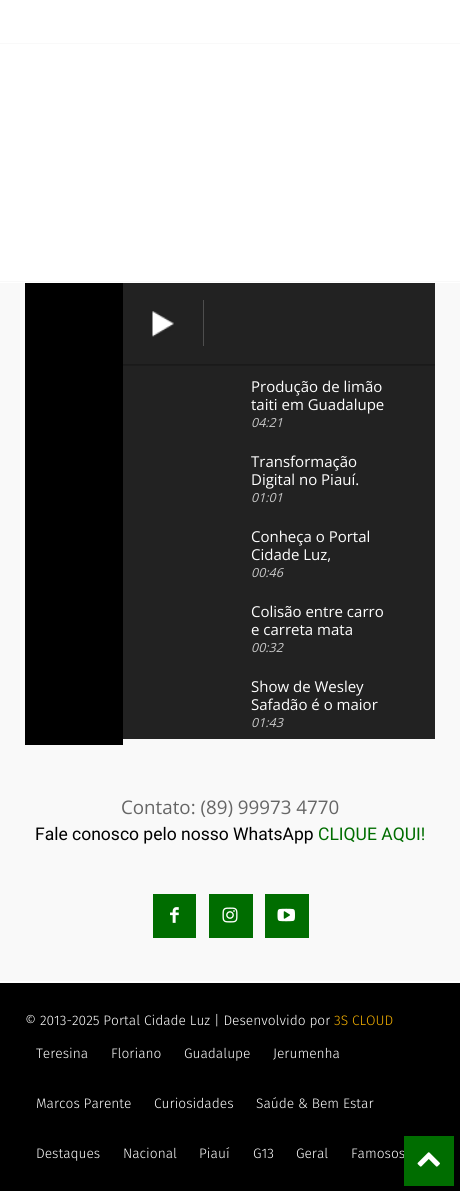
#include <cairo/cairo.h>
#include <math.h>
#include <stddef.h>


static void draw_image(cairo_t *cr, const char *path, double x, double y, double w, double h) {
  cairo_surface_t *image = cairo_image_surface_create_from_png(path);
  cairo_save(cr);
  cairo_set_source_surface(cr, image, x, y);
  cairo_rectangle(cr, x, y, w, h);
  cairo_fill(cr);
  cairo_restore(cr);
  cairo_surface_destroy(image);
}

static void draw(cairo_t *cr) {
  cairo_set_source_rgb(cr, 1, 1, 1);
  cairo_paint(cr);
  cairo_save(cr);
  cairo_rectangle(cr, 0, 43, 460, 1);
  cairo_clip(cr);
  cairo_set_source_rgb(cr, 249 / 255.0, 249 / 255.0, 249 / 255.0);
  cairo_new_path(cr);
  cairo_move_to(cr, -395, 81);
  cairo_line_to(cr, -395, -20);
  cairo_line_to(cr, -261, -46);
  cairo_line_to(cr, -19, 1);
  cairo_line_to(cr, 155, -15);
  cairo_line_to(cr, 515, 40);
  cairo_line_to(cr, 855, -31);
  cairo_line_to(cr, 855, 81);
  cairo_close_path(cr);
  cairo_fill(cr);
  cairo_restore(cr);
  cairo_set_source_rgb(cr, 249 / 255.0, 249 / 255.0, 249 / 255.0);
  cairo_rectangle(cr, 0, 281, 460, 1);
  cairo_fill(cr);
  cairo_rectangle(cr, 0, 283, 460, 698);
  cairo_fill(cr);
  cairo_set_source_rgb(cr, 0, 0, 0);
  cairo_rectangle(cr, 25, 283, 98, 462);
  cairo_fill(cr);
  cairo_set_source_rgb(cr, 34 / 255.0, 34 / 255.0, 34 / 255.0);
  cairo_rectangle(cr, 123, 283, 312, 456);
  cairo_fill(cr);
  draw_image(cr, "images/1.png", 152, 311, 22, 26);
  cairo_set_source_rgb(cr, 78 / 255.0, 78 / 255.0, 78 / 255.0);
  cairo_rectangle(cr, 203, 300, 1, 46);
  cairo_fill(cr);
  draw_image(cr, "images/2.png", 123, 364, 312, 2);
  cairo_set_source_rgb(cr, 0, 109 / 255.0, 0);
  cairo_rectangle(cr, 153, 894, 43, 44);
  cairo_fill(cr);
  draw_image(cr, "images/3.png", 170, 907, 9, 16);
  cairo_rectangle(cr, 209, 894, 44, 44);
  cairo_fill(cr);
  draw_image(cr, "images/4.png", 222, 907, 16, 16);
  cairo_rectangle(cr, 265, 894, 44, 44);
  cairo_fill(cr);
  draw_image(cr, "images/5.png", 277, 908, 18, 14);
  cairo_set_source_rgb(cr, 0, 0, 0);
  cairo_rectangle(cr, 0, 983, 460, 208);
  cairo_fill(cr);
  cairo_select_font_face(cr, "Open Sans", CAIRO_FONT_SLANT_NORMAL, CAIRO_FONT_WEIGHT_NORMAL);
  cairo_set_font_size(cr, 15);
  cairo_set_source_rgb(cr, 1, 1, 1);
  cairo_move_to(cr, 251, 392);
  cairo_show_text(cr, "Produção de limão");
  cairo_move_to(cr, 251, 410);
  cairo_show_text(cr, "taiti em Guadalupe");
  cairo_select_font_face(cr, "Open Sans", CAIRO_FONT_SLANT_ITALIC, CAIRO_FONT_WEIGHT_NORMAL);
  cairo_set_font_size(cr, 12.5);
  cairo_set_source_rgb(cr, 202 / 255.0, 202 / 255.0, 202 / 255.0);
  cairo_move_to(cr, 251, 427);
  cairo_show_text(cr, "04:21");
  cairo_select_font_face(cr, "Open Sans", CAIRO_FONT_SLANT_NORMAL, CAIRO_FONT_WEIGHT_NORMAL);
  cairo_set_font_size(cr, 15);
  cairo_set_source_rgb(cr, 1, 1, 1);
  cairo_move_to(cr, 251, 467);
  cairo_show_text(cr, "Transformação");
  cairo_move_to(cr, 251, 485);
  cairo_show_text(cr, "Digital no Piauí.");
  cairo_select_font_face(cr, "Open Sans", CAIRO_FONT_SLANT_ITALIC, CAIRO_FONT_WEIGHT_NORMAL);
  cairo_set_font_size(cr, 12.5);
  cairo_set_source_rgb(cr, 202 / 255.0, 202 / 255.0, 202 / 255.0);
  cairo_move_to(cr, 251, 502);
  cairo_show_text(cr, "01:01");
  cairo_select_font_face(cr, "Open Sans", CAIRO_FONT_SLANT_NORMAL, CAIRO_FONT_WEIGHT_NORMAL);
  cairo_set_font_size(cr, 15);
  cairo_set_source_rgb(cr, 1, 1, 1);
  cairo_move_to(cr, 251, 542);
  cairo_show_text(cr, "Conheça o Portal");
  cairo_move_to(cr, 251, 560);
  cairo_show_text(cr, "Cidade Luz,");
  cairo_select_font_face(cr, "Open Sans", CAIRO_FONT_SLANT_ITALIC, CAIRO_FONT_WEIGHT_NORMAL);
  cairo_set_font_size(cr, 12.5);
  cairo_set_source_rgb(cr, 202 / 255.0, 202 / 255.0, 202 / 255.0);
  cairo_move_to(cr, 251, 577);
  cairo_show_text(cr, "00:46");
  cairo_select_font_face(cr, "Open Sans", CAIRO_FONT_SLANT_NORMAL, CAIRO_FONT_WEIGHT_NORMAL);
  cairo_set_font_size(cr, 15);
  cairo_set_source_rgb(cr, 1, 1, 1);
  cairo_move_to(cr, 251, 617);
  cairo_show_text(cr, "Colisão entre carro");
  cairo_move_to(cr, 251, 635);
  cairo_show_text(cr, "e carreta mata");
  cairo_select_font_face(cr, "Open Sans", CAIRO_FONT_SLANT_ITALIC, CAIRO_FONT_WEIGHT_NORMAL);
  cairo_set_font_size(cr, 12.5);
  cairo_set_source_rgb(cr, 202 / 255.0, 202 / 255.0, 202 / 255.0);
  cairo_move_to(cr, 251, 652);
  cairo_show_text(cr, "00:32");
  cairo_select_font_face(cr, "Open Sans", CAIRO_FONT_SLANT_NORMAL, CAIRO_FONT_WEIGHT_NORMAL);
  cairo_set_font_size(cr, 15);
  cairo_set_source_rgb(cr, 1, 1, 1);
  cairo_move_to(cr, 251, 692);
  cairo_show_text(cr, "Show de Wesley");
  cairo_move_to(cr, 251, 710);
  cairo_show_text(cr, "Safadão é o maior");
  cairo_select_font_face(cr, "Open Sans", CAIRO_FONT_SLANT_ITALIC, CAIRO_FONT_WEIGHT_NORMAL);
  cairo_set_font_size(cr, 12.5);
  cairo_set_source_rgb(cr, 202 / 255.0, 202 / 255.0, 202 / 255.0);
  cairo_move_to(cr, 251, 727);
  cairo_show_text(cr, "01:43");
  cairo_select_font_face(cr, "Open Sans", CAIRO_FONT_SLANT_NORMAL, CAIRO_FONT_WEIGHT_NORMAL);
  cairo_set_font_size(cr, 18.75);
  cairo_set_source_rgb(cr, 102 / 255.0, 102 / 255.0, 102 / 255.0);
  cairo_move_to(cr, 121, 814);
  cairo_show_text(cr, "Contato: (89) 99973 4770");
  cairo_select_font_face(cr, "Roboto", CAIRO_FONT_SLANT_NORMAL, CAIRO_FONT_WEIGHT_NORMAL);
  cairo_set_font_size(cr, 17.5);
  cairo_set_source_rgb(cr, 0, 0, 0);
  cairo_move_to(cr, 35, 840);
  cairo_show_text(cr, "Fale conosco pelo nosso WhatsApp");
  cairo_set_source_rgb(cr, 0, 109 / 255.0, 0);
  cairo_move_to(cr, 318, 840);
  cairo_show_text(cr, "CLIQUE AQUI!");
  cairo_select_font_face(cr, "Fira Sans Light", CAIRO_FONT_SLANT_NORMAL, CAIRO_FONT_WEIGHT_NORMAL);
  cairo_set_font_size(cr, 13.75);
  cairo_set_source_rgb(cr, 1, 1, 1);
  cairo_move_to(cr, 25, 1025);
  cairo_show_text(cr, "© 2013-2025 Portal Cidade Luz | Desenvolvido por");
  cairo_set_source_rgb(cr, 245 / 255.0, 176 / 255.0, 0);
  cairo_move_to(cr, 334, 1025);
  cairo_show_text(cr, "3S CLOUD");
  cairo_set_source_rgb(cr, 1, 1, 1);
  cairo_move_to(cr, 36, 1058);
  cairo_show_text(cr, "Teresina");
  cairo_move_to(cr, 111, 1058);
  cairo_show_text(cr, "Floriano");
  cairo_move_to(cr, 184, 1058);
  cairo_show_text(cr, "Guadalupe");
  cairo_move_to(cr, 273, 1058);
  cairo_show_text(cr, "Jerumenha");
  cairo_move_to(cr, 36, 1108);
  cairo_show_text(cr, "Marcos Parente");
  cairo_move_to(cr, 154, 1108);
  cairo_show_text(cr, "Curiosidades");
  cairo_move_to(cr, 256, 1108);
  cairo_show_text(cr, "Saúde & Bem Estar");
  cairo_move_to(cr, 36, 1158);
  cairo_show_text(cr, "Destaques");
  cairo_move_to(cr, 123, 1158);
  cairo_show_text(cr, "Nacional");
  cairo_move_to(cr, 199, 1158);
  cairo_show_text(cr, "Piauí");
  cairo_move_to(cr, 253, 1158);
  cairo_show_text(cr, "G13");
  cairo_move_to(cr, 296, 1158);
  cairo_show_text(cr, "Geral");
  cairo_move_to(cr, 351, 1158);
  cairo_show_text(cr, "Famosos");
  cairo_set_source_rgb(cr, 0, 109 / 255.0, 0);
  cairo_rectangle(cr, 404, 1136, 50, 50);
  cairo_fill(cr);
  draw_image(cr, "images/6.png", 417, 1152, 23, 15);
}

int main(void) {
  cairo_surface_t *surface = cairo_image_surface_create(CAIRO_FORMAT_RGB24, 460, 1191);
  cairo_t *cr = cairo_create(surface);
  cairo_font_options_t *options = cairo_font_options_create();
  cairo_font_options_set_hint_metrics(options, CAIRO_HINT_METRICS_OFF);
  cairo_font_options_set_hint_style(options, CAIRO_HINT_STYLE_NONE);
  cairo_set_font_options(cr, options);
  cairo_set_miter_limit(cr, 4);
  draw(cr);
  cairo_surface_write_to_png(surface, "out.png");
  cairo_font_options_destroy(options);
  cairo_destroy(cr);
  cairo_surface_destroy(surface);
  return 0;
}
